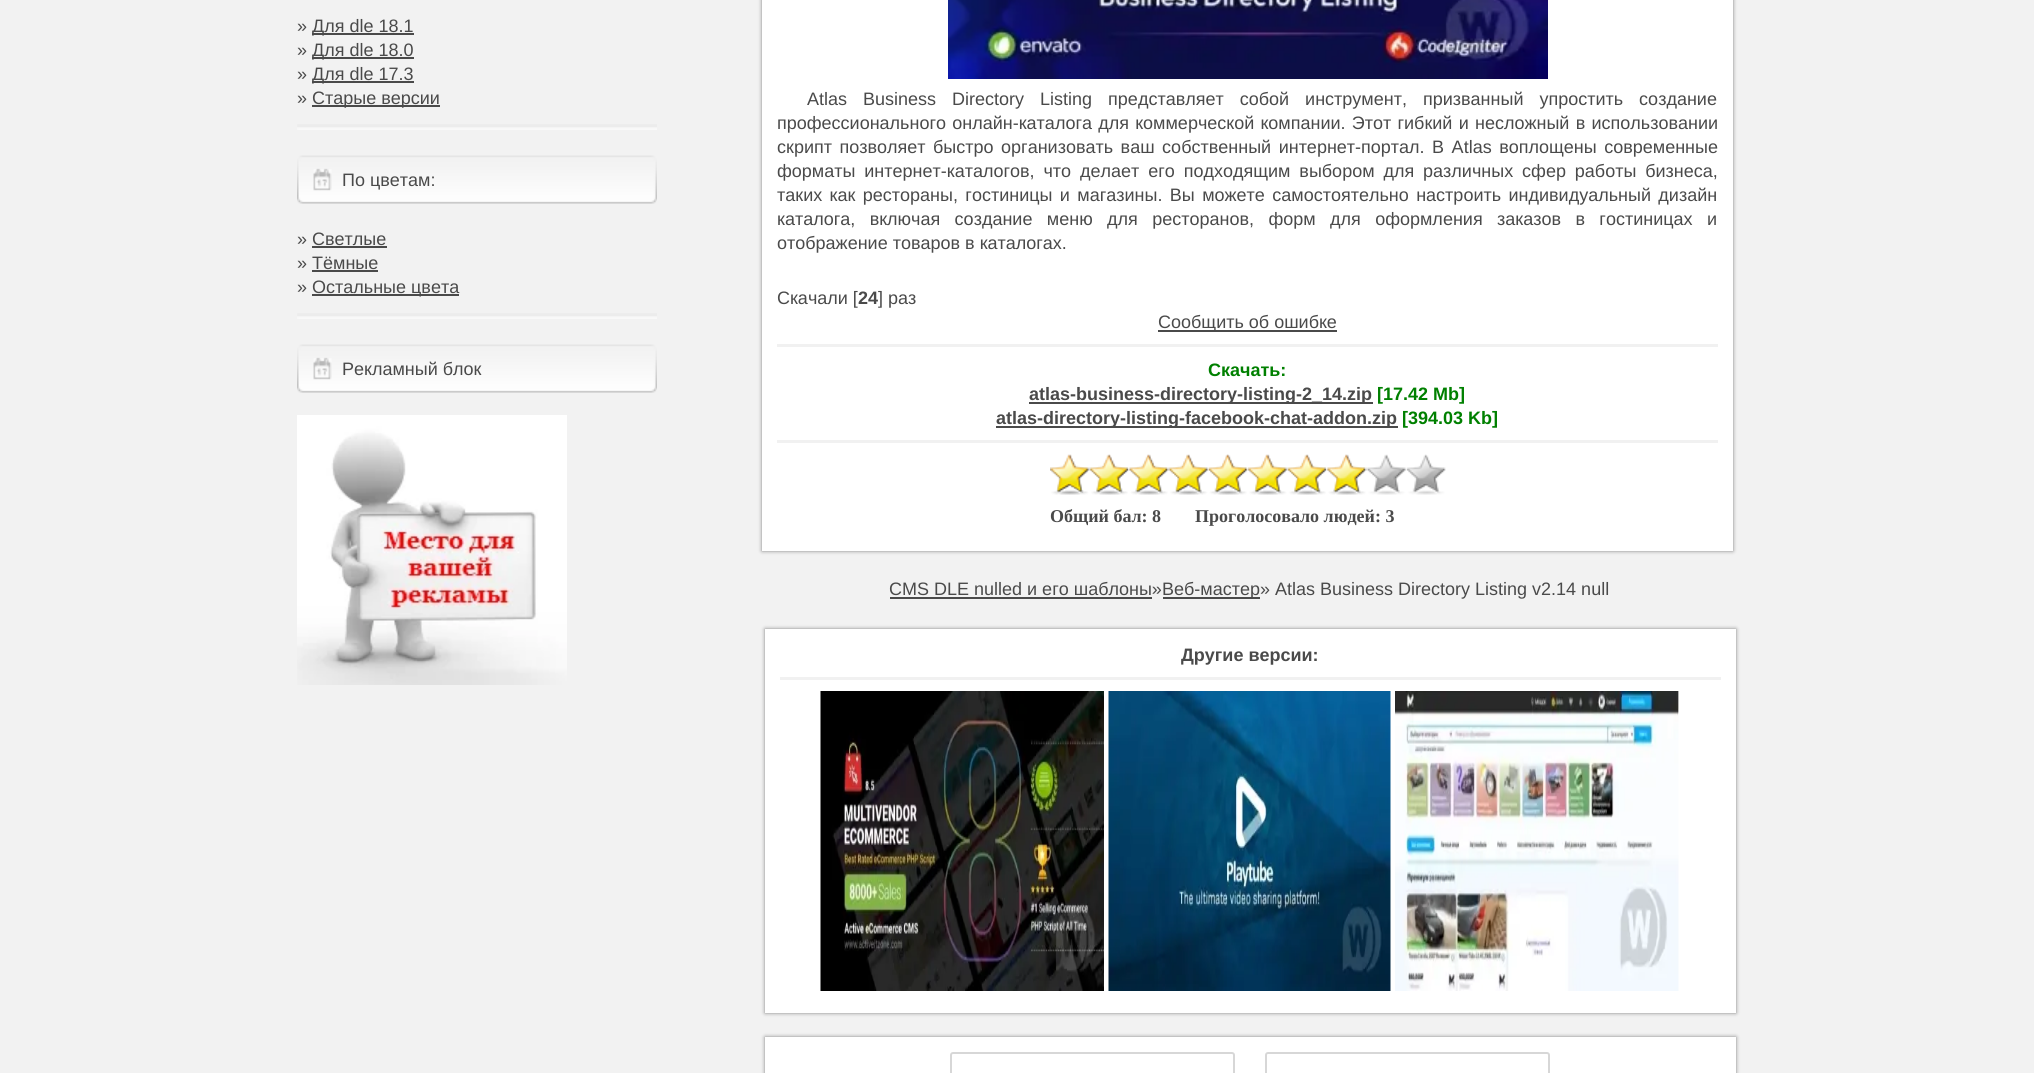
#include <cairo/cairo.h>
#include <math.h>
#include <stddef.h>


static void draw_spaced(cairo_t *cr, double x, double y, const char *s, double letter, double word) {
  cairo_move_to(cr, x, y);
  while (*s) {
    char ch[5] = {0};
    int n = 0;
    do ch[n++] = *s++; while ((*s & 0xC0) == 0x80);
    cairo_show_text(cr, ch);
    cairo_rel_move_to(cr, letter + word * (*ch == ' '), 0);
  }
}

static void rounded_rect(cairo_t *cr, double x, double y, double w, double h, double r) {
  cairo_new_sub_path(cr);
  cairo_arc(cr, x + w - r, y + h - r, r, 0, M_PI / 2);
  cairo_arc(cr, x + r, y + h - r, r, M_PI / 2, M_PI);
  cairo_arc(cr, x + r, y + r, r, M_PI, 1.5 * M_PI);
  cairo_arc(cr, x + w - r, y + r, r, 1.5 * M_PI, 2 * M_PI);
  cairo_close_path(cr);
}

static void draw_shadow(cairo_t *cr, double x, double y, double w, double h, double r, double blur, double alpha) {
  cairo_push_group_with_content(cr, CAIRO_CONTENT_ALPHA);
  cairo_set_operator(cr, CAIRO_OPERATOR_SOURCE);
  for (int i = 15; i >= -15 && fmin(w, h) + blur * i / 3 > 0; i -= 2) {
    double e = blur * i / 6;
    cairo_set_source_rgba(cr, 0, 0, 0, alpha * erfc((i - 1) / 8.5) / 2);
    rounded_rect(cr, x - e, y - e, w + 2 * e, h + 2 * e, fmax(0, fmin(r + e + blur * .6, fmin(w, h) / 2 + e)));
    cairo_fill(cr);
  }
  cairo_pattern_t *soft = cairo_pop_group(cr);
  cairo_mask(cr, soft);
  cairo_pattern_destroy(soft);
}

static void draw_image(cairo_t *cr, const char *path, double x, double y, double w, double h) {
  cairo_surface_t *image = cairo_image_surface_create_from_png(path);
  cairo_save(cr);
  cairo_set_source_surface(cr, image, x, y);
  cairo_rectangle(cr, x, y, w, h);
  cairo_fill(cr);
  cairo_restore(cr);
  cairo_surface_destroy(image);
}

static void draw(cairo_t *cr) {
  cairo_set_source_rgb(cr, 242 / 255.0, 242 / 255.0, 242 / 255.0);
  cairo_paint(cr);
  cairo_set_source_rgb(cr, 74 / 255.0, 74 / 255.0, 74 / 255.0);
  cairo_rectangle(cr, 312, 33, 102, 2);
  cairo_fill(cr);
  cairo_rectangle(cr, 312, 57, 102, 2);
  cairo_fill(cr);
  cairo_rectangle(cr, 312, 81, 102, 2);
  cairo_fill(cr);
  cairo_rectangle(cr, 312, 105, 128, 2);
  cairo_fill(cr);
  draw_image(cr, "images/1.png", 297, 124, 360, 6);
  draw_image(cr, "images/2.png", 297, 155, 360, 49);
  cairo_rectangle(cr, 312, 246, 75, 2);
  cairo_fill(cr);
  cairo_rectangle(cr, 312, 270, 66, 2);
  cairo_fill(cr);
  cairo_rectangle(cr, 312, 294, 147, 2);
  cairo_fill(cr);
  draw_image(cr, "images/1.png", 297, 313, 360, 6);
  draw_image(cr, "images/2.png", 297, 344, 360, 49);
  draw_image(cr, "images/3.png", 297, 415, 270, 270);
  cairo_set_source_rgb(cr, 131 / 255.0, 131 / 255.0, 131 / 255.0);
  draw_shadow(cr, 762, -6, 971, 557, 0, 2, 1);
  cairo_set_source_rgb(cr, 1, 1, 1);
  cairo_rectangle(cr, 762, 0, 971, 551);
  cairo_fill(cr);
  draw_image(cr, "images/4.png", 948, 0, 600, 79);
  cairo_set_source_rgb(cr, 74 / 255.0, 74 / 255.0, 74 / 255.0);
  cairo_rectangle(cr, 1158, 330, 179, 2);
  cairo_fill(cr);
  cairo_set_source_rgb(cr, 241 / 255.0, 241 / 255.0, 241 / 255.0);
  cairo_rectangle(cr, 777, 344, 941, 3);
  cairo_fill(cr);
  cairo_set_source_rgb(cr, 74 / 255.0, 74 / 255.0, 74 / 255.0);
  cairo_rectangle(cr, 1029, 402, 344, 2);
  cairo_fill(cr);
  cairo_rectangle(cr, 996, 426, 402, 2);
  cairo_fill(cr);
  cairo_set_source_rgb(cr, 241 / 255.0, 241 / 255.0, 241 / 255.0);
  cairo_rectangle(cr, 777, 440, 941, 3);
  cairo_fill(cr);
  draw_image(cr, "images/5.png", 1050, 454, 396, 41);
  draw_image(cr, "images/6.png", 1050, 454, 317, 41);
  cairo_set_source_rgb(cr, 74 / 255.0, 74 / 255.0, 74 / 255.0);
  cairo_rectangle(cr, 890, 597, 262, 2);
  cairo_fill(cr);
  cairo_rectangle(cr, 1163, 597, 97, 2);
  cairo_fill(cr);
  cairo_set_source_rgb(cr, 131 / 255.0, 131 / 255.0, 131 / 255.0);
  draw_shadow(cr, 765, 629, 971, 384, 0, 2, 1);
  cairo_set_source_rgb(cr, 1, 1, 1);
  cairo_rectangle(cr, 765, 629, 971, 384);
  cairo_fill(cr);
  cairo_set_source_rgb(cr, 241 / 255.0, 241 / 255.0, 241 / 255.0);
  cairo_rectangle(cr, 780, 677, 941, 3);
  cairo_fill(cr);
  draw_image(cr, "images/7.png", 820, 691, 284, 300);
  draw_image(cr, "images/8.png", 1108, 691, 283, 300);
  draw_image(cr, "images/9.png", 1395, 691, 284, 300);
  cairo_set_source_rgb(cr, 131 / 255.0, 131 / 255.0, 131 / 255.0);
  draw_shadow(cr, 765, 1037, 971, 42, 0, 2, 1);
  cairo_set_source_rgb(cr, 1, 1, 1);
  cairo_rectangle(cr, 765, 1037, 971, 36);
  cairo_fill(cr);
  rounded_rect(cr, 951, 1053, 283, 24, 2);
  cairo_set_source_rgb(cr, 215 / 255.0, 215 / 255.0, 215 / 255.0);
  cairo_stroke(cr);
  rounded_rect(cr, 1266, 1053, 283, 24, 2);
  cairo_stroke(cr);
  cairo_select_font_face(cr, "Liberation Sans", CAIRO_FONT_SLANT_NORMAL, CAIRO_FONT_WEIGHT_NORMAL);
  cairo_set_font_size(cr, 18);
  cairo_set_source_rgb(cr, 74 / 255.0, 74 / 255.0, 74 / 255.0);
  cairo_move_to(cr, 297, 32);
  cairo_show_text(cr, "»");
  cairo_move_to(cr, 312, 32);
  cairo_show_text(cr, "Для dle 18.1");
  cairo_move_to(cr, 297, 56);
  cairo_show_text(cr, "»");
  cairo_move_to(cr, 312, 56);
  cairo_show_text(cr, "Для dle 18.0");
  cairo_move_to(cr, 297, 80);
  cairo_show_text(cr, "»");
  cairo_move_to(cr, 312, 80);
  cairo_show_text(cr, "Для dle 17.3");
  cairo_move_to(cr, 297, 104);
  cairo_show_text(cr, "»");
  cairo_move_to(cr, 312, 104);
  cairo_show_text(cr, "Старые версии");
  cairo_move_to(cr, 342, 186);
  cairo_show_text(cr, "По цветам:");
  cairo_move_to(cr, 297, 245);
  cairo_show_text(cr, "» Светлые");
  cairo_move_to(cr, 297, 269);
  cairo_show_text(cr, "» Тёмные");
  cairo_move_to(cr, 297, 293);
  cairo_show_text(cr, "»");
  cairo_move_to(cr, 312, 293);
  cairo_show_text(cr, "Остальные цвета");
  cairo_move_to(cr, 342, 375);
  cairo_show_text(cr, "Рекламный блок");
  draw_spaced(cr, 807, 105, "Atlas Business Directory Listing представляет собой инструмент, призванный упростить создание", 0, 11);
  draw_spaced(cr, 777, 129, "профессионального онлайн-каталога для коммерческой компании. Этот гибкий и несложный в использовании", 0, 1.25);
  draw_spaced(cr, 777, 153, "скрипт позволяет быстро организовать ваш собственный интернет-портал. В Atlas воплощены современные", 0, 2.5);
  draw_spaced(cr, 777, 177, "форматы интернет-каталогов, что делает его подходящим выбором для различных сфер работы бизнеса,", 0, 3.9);
  draw_spaced(cr, 777, 201, "таких как рестораны, гостиницы и магазины. Вы можете самостоятельно настроить индивидуальный дизайн", 0, 2.4);
  draw_spaced(cr, 777, 225, "каталога, включая создание меню для ресторанов, форм для оформления заказов в гостиницах и", 0, 9.4);
  cairo_move_to(cr, 777, 249);
  cairo_show_text(cr, "отображение товаров в каталогах.");
  cairo_move_to(cr, 777, 304);
  cairo_show_text(cr, "Cкачали [");
  cairo_select_font_face(cr, "Liberation Sans", CAIRO_FONT_SLANT_NORMAL, CAIRO_FONT_WEIGHT_BOLD);
  cairo_move_to(cr, 858, 304);
  cairo_show_text(cr, "24");
  cairo_select_font_face(cr, "Liberation Sans", CAIRO_FONT_SLANT_NORMAL, CAIRO_FONT_WEIGHT_NORMAL);
  cairo_move_to(cr, 878, 304);
  cairo_show_text(cr, "] раз");
  cairo_move_to(cr, 1158, 328);
  cairo_show_text(cr, "Сообщить об ошибке");
  cairo_select_font_face(cr, "Liberation Sans", CAIRO_FONT_SLANT_NORMAL, CAIRO_FONT_WEIGHT_BOLD);
  cairo_set_source_rgb(cr, 0, 128 / 255.0, 0);
  cairo_move_to(cr, 1208, 376);
  cairo_show_text(cr, "Скачать:");
  cairo_set_source_rgb(cr, 74 / 255.0, 74 / 255.0, 74 / 255.0);
  cairo_move_to(cr, 1029, 400);
  cairo_show_text(cr, "atlas-business-directory-listing-2_14.zip");
  cairo_set_source_rgb(cr, 0, 128 / 255.0, 0);
  cairo_move_to(cr, 1377, 400);
  cairo_show_text(cr, "[17.42 Mb]");
  cairo_set_source_rgb(cr, 74 / 255.0, 74 / 255.0, 74 / 255.0);
  cairo_move_to(cr, 996, 424);
  cairo_show_text(cr, "atlas-directory-listing-facebook-chat-addon.zip");
  cairo_set_source_rgb(cr, 0, 128 / 255.0, 0);
  cairo_move_to(cr, 1402, 424);
  cairo_show_text(cr, "[394.03 Kb]");
  cairo_select_font_face(cr, "Liberation Serif", CAIRO_FONT_SLANT_NORMAL, CAIRO_FONT_WEIGHT_BOLD);
  cairo_set_source_rgb(cr, 74 / 255.0, 74 / 255.0, 74 / 255.0);
  cairo_move_to(cr, 1050, 522);
  cairo_show_text(cr, "Общий бал: 8");
  cairo_move_to(cr, 1195, 522);
  cairo_show_text(cr, "Проголосовало людей: 3");
  cairo_select_font_face(cr, "Liberation Sans", CAIRO_FONT_SLANT_NORMAL, CAIRO_FONT_WEIGHT_NORMAL);
  cairo_move_to(cr, 889, 595);
  cairo_show_text(cr, "CMS DLE nulled и его шаблоны»");
  cairo_move_to(cr, 1162, 595);
  cairo_show_text(cr, "Веб-мастер» Atlas Business Directory Listing v2.14 null");
  cairo_select_font_face(cr, "Liberation Sans", CAIRO_FONT_SLANT_NORMAL, CAIRO_FONT_WEIGHT_BOLD);
  cairo_move_to(cr, 1181, 661);
  cairo_show_text(cr, "Другие версии:");
}

int main(void) {
  cairo_surface_t *surface = cairo_image_surface_create(CAIRO_FORMAT_RGB24, 2034, 1073);
  cairo_t *cr = cairo_create(surface);
  cairo_font_options_t *options = cairo_font_options_create();
  cairo_font_options_set_hint_metrics(options, CAIRO_HINT_METRICS_OFF);
  cairo_font_options_set_hint_style(options, CAIRO_HINT_STYLE_NONE);
  cairo_set_font_options(cr, options);
  cairo_set_miter_limit(cr, 4);
  draw(cr);
  cairo_surface_write_to_png(surface, "out.png");
  cairo_font_options_destroy(options);
  cairo_destroy(cr);
  cairo_surface_destroy(surface);
  return 0;
}
